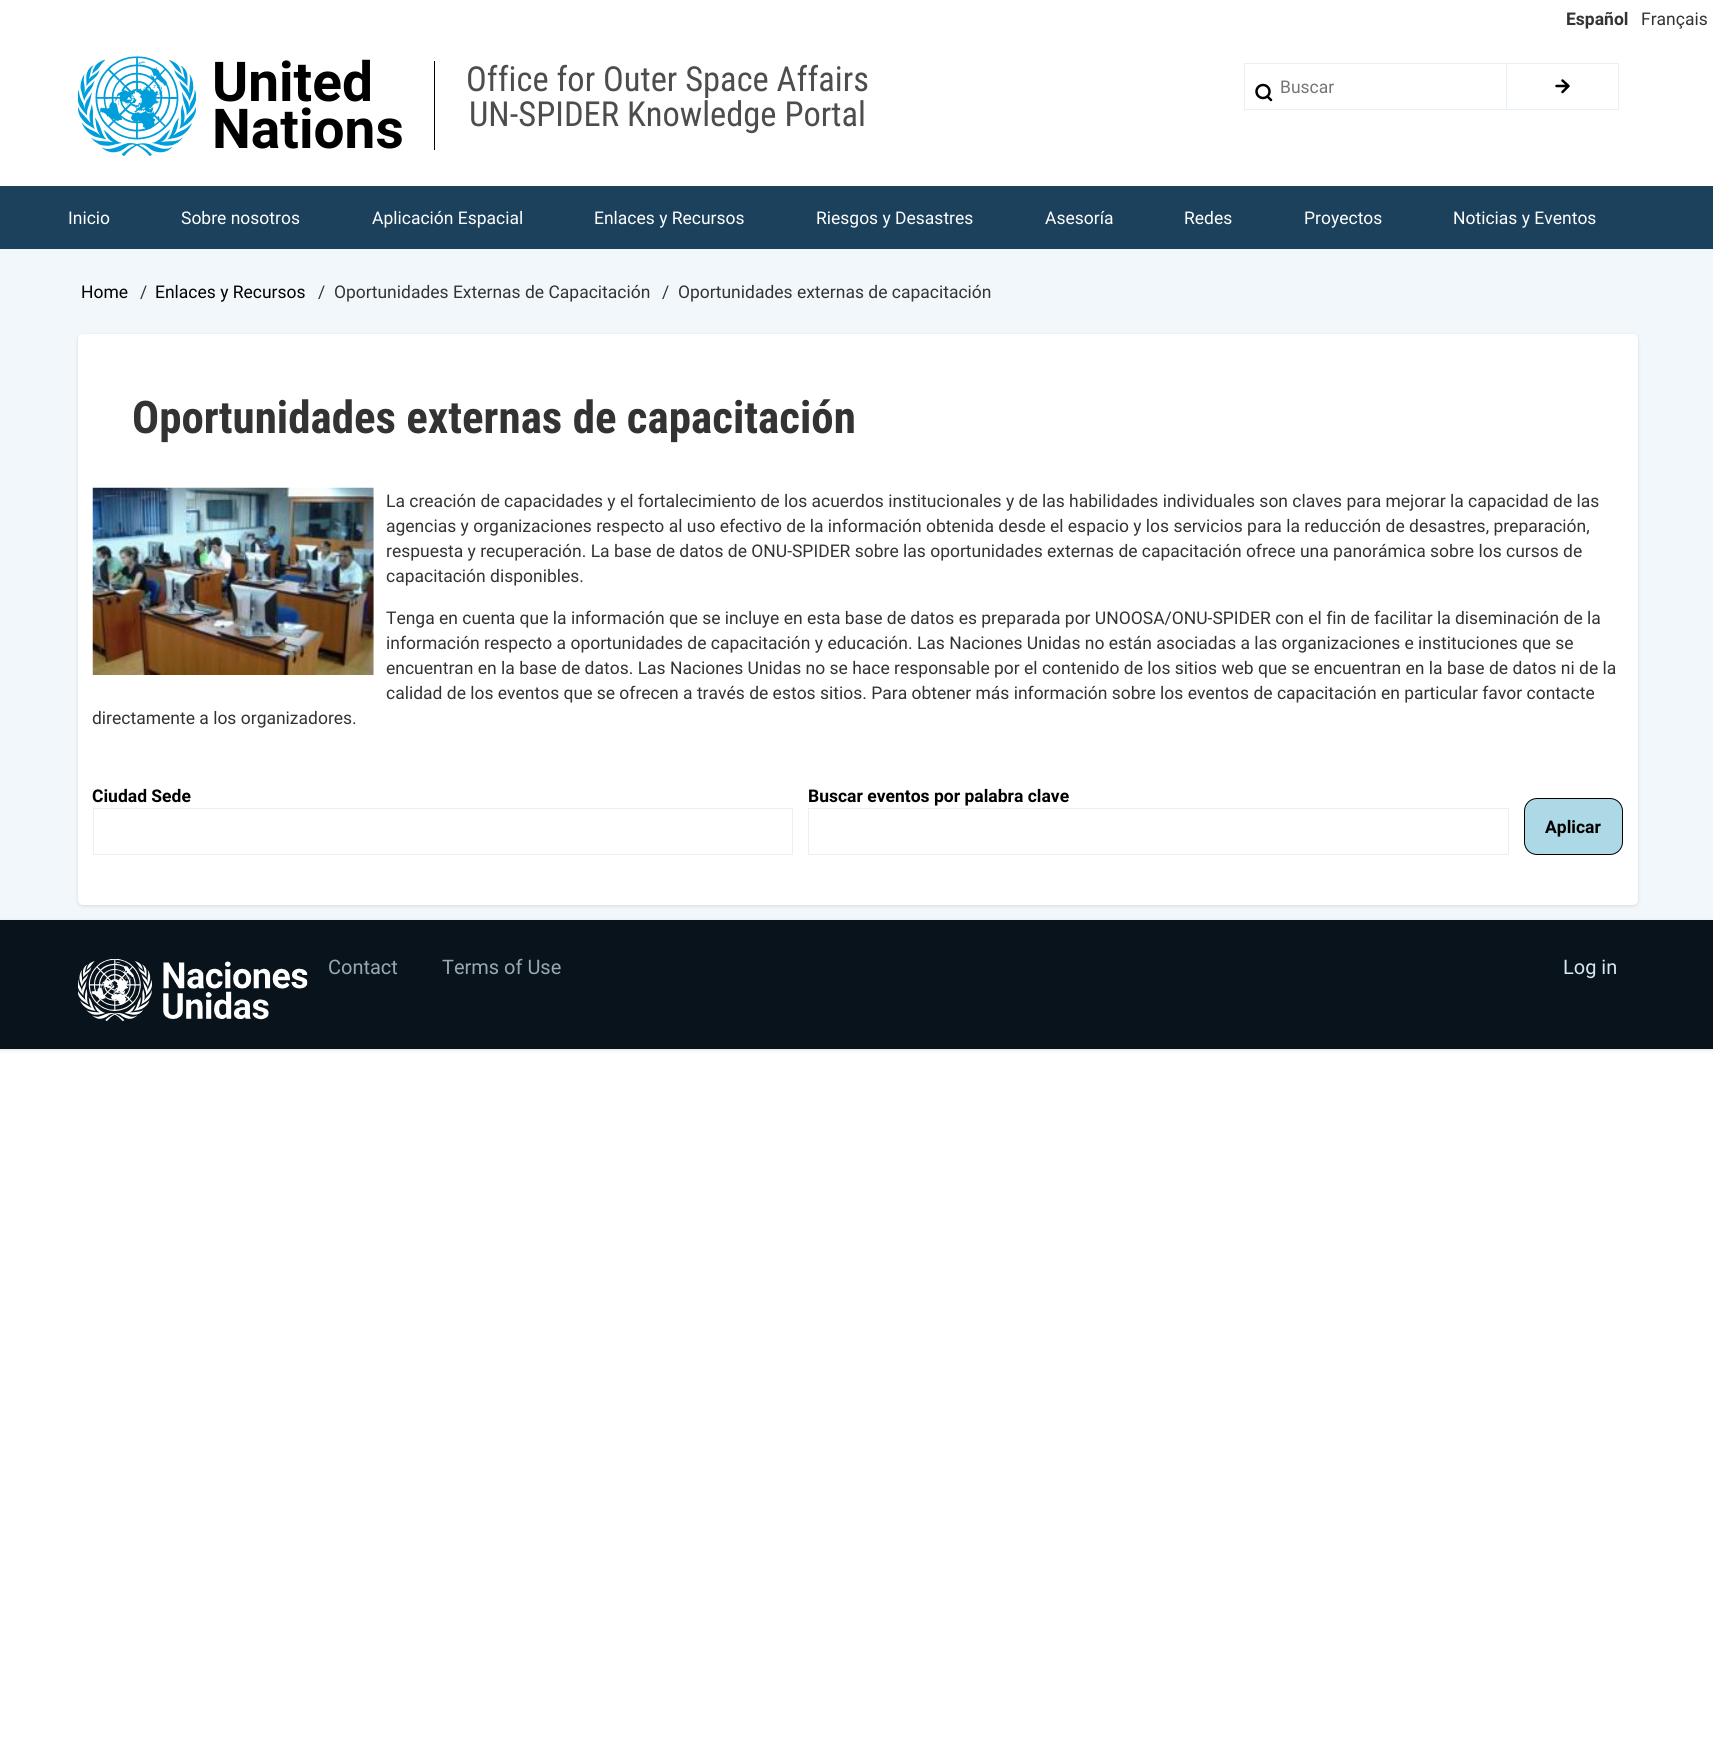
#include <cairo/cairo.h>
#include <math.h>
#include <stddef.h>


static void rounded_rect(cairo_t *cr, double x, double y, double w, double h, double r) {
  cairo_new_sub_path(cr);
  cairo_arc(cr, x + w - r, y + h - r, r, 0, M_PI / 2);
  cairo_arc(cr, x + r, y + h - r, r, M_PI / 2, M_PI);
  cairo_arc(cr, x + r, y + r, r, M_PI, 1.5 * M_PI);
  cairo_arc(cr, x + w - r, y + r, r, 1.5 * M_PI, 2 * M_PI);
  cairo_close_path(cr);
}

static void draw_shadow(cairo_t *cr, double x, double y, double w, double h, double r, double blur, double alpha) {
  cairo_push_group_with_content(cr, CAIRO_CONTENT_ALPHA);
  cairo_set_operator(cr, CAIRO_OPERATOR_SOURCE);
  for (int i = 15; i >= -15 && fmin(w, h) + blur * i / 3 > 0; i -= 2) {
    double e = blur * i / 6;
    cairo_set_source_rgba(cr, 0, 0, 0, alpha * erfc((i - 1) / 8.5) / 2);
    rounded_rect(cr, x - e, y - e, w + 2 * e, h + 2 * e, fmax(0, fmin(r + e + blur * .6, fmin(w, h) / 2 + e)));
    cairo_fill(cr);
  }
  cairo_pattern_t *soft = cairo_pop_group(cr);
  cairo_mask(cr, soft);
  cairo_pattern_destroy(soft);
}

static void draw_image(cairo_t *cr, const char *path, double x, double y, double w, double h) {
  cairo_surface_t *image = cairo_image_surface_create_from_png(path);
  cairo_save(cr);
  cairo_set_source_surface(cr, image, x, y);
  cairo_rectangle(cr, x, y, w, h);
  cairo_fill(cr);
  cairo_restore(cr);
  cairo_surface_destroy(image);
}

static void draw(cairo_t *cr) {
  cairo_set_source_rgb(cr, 1, 1, 1);
  cairo_paint(cr);
  draw_image(cr, "images/1.png", 78, 56, 118, 100);
  cairo_set_source_rgb(cr, 0, 0, 0);
  cairo_rectangle(cr, 434, 61, 1, 89);
  cairo_fill(cr);
  cairo_arc(cr, 1263, 91.5, 6.5, 0, 2 * M_PI);
  cairo_set_line_width(cr, 2.5);
  cairo_stroke(cr);
  cairo_new_path(cr);
  cairo_move_to(cr, 1271, 100);
  cairo_line_to(cr, 1267.5, 96.5);
  cairo_set_line_cap(cr, CAIRO_LINE_CAP_ROUND);
  cairo_set_line_join(cr, CAIRO_LINE_JOIN_ROUND);
  cairo_stroke(cr);
  cairo_set_source_rgb(cr, 229 / 255.0, 240 / 255.0, 248 / 255.0);
  cairo_rectangle(cr, 1244, 63, 262, 1);
  cairo_fill(cr);
  cairo_rectangle(cr, 1244, 109, 262, 1);
  cairo_fill(cr);
  cairo_rectangle(cr, 1244, 63, 1, 47);
  cairo_fill(cr);
  cairo_new_path(cr);
  cairo_move_to(cr, 1556.5, 86);
  cairo_line_to(cr, 1567.5, 86);
  cairo_move_to(cr, 1562.5, 80.5);
  cairo_line_to(cr, 1568.5, 86);
  cairo_line_to(cr, 1562.5, 92);
  cairo_set_source_rgb(cr, 0, 0, 0);
  cairo_stroke(cr);
  cairo_rectangle(cr, 1506.5, 63.5, 112, 46);
  cairo_set_source_rgb(cr, 229 / 255.0, 240 / 255.0, 248 / 255.0);
  cairo_set_line_width(cr, 1);
  cairo_set_line_cap(cr, CAIRO_LINE_CAP_BUTT);
  cairo_set_line_join(cr, CAIRO_LINE_JOIN_MITER);
  cairo_stroke(cr);
  cairo_set_source_rgb(cr, 27 / 255.0, 65 / 255.0, 93 / 255.0);
  cairo_rectangle(cr, 0, 186, 1713, 63);
  cairo_fill(cr);
  cairo_set_source_rgb(cr, 242 / 255.0, 247 / 255.0, 251 / 255.0);
  cairo_rectangle(cr, 0, 249, 1713, 671);
  cairo_fill(cr);
  cairo_set_source_rgb(cr, 0, 0, 0);
  draw_shadow(cr, 78, 335, 1560, 571, 5, 2, 0.12);
  cairo_set_source_rgb(cr, 1, 1, 1);
  rounded_rect(cr, 78, 334, 1560, 571, 5);
  cairo_fill(cr);
  draw_image(cr, "images/2.png", 92, 487, 282, 188);
  cairo_rectangle(cr, 93.5, 808.5, 699, 46);
  cairo_set_source_rgb(cr, 229 / 255.0, 240 / 255.0, 248 / 255.0);
  cairo_stroke(cr);
  cairo_rectangle(cr, 808.5, 808.5, 700, 46);
  cairo_stroke(cr);
  cairo_set_source_rgb(cr, 173 / 255.0, 216 / 255.0, 230 / 255.0);
  rounded_rect(cr, 1524.5, 798.5, 98, 56, 12.5);
  cairo_fill_preserve(cr);
  cairo_set_source_rgb(cr, 0, 0, 0);
  cairo_stroke(cr);
  cairo_set_source_rgb(cr, 0, 0, 0);
  draw_shadow(cr, 0, 921, 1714, 129, 0, 2, 0.12);
  cairo_set_source_rgb(cr, 8 / 255.0, 19 / 255.0, 27 / 255.0);
  cairo_rectangle(cr, 0, 920, 1713, 129);
  cairo_fill(cr);
  draw_image(cr, "images/3.png", 78, 959, 230, 62);
  cairo_select_font_face(cr, "Roboto", CAIRO_FONT_SLANT_NORMAL, CAIRO_FONT_WEIGHT_BOLD);
  cairo_set_font_size(cr, 17.5);
  cairo_set_source_rgb(cr, 51 / 255.0, 51 / 255.0, 51 / 255.0);
  cairo_move_to(cr, 1566, 25);
  cairo_show_text(cr, "Español");
  cairo_select_font_face(cr, "Roboto", CAIRO_FONT_SLANT_NORMAL, CAIRO_FONT_WEIGHT_NORMAL);
  cairo_move_to(cr, 1641, 25);
  cairo_show_text(cr, "Français");
  cairo_select_font_face(cr, "Roboto", CAIRO_FONT_SLANT_NORMAL, CAIRO_FONT_WEIGHT_BOLD);
  cairo_set_font_size(cr, 55);
  cairo_set_source_rgb(cr, 0, 0, 0);
  cairo_move_to(cr, 212, 101);
  cairo_show_text(cr, "United");
  cairo_move_to(cr, 212, 148);
  cairo_show_text(cr, "Nations");
  cairo_select_font_face(cr, "Roboto Condensed", CAIRO_FONT_SLANT_NORMAL, CAIRO_FONT_WEIGHT_NORMAL);
  cairo_set_font_size(cr, 34.5);
  cairo_set_source_rgb(cr, 77 / 255.0, 77 / 255.0, 77 / 255.0);
  cairo_move_to(cr, 466, 91);
  cairo_show_text(cr, "Office for Outer Space Affairs");
  cairo_move_to(cr, 469, 126);
  cairo_show_text(cr, "UN-SPIDER Knowledge Portal");
  cairo_select_font_face(cr, "Roboto", CAIRO_FONT_SLANT_NORMAL, CAIRO_FONT_WEIGHT_NORMAL);
  cairo_set_font_size(cr, 17.5);
  cairo_set_source_rgb(cr, 117 / 255.0, 117 / 255.0, 117 / 255.0);
  cairo_move_to(cr, 1280, 93);
  cairo_show_text(cr, "Buscar");
  cairo_set_source_rgb(cr, 1, 1, 1);
  cairo_move_to(cr, 68, 224);
  cairo_show_text(cr, "Inicio");
  cairo_move_to(cr, 181, 224);
  cairo_show_text(cr, "Sobre nosotros");
  cairo_move_to(cr, 372, 224);
  cairo_show_text(cr, "Aplicación Espacial");
  cairo_move_to(cr, 594, 224);
  cairo_show_text(cr, "Enlaces y Recursos");
  cairo_move_to(cr, 816, 224);
  cairo_show_text(cr, "Riesgos y Desastres");
  cairo_move_to(cr, 1045, 224);
  cairo_show_text(cr, "Asesoría");
  cairo_move_to(cr, 1184, 224);
  cairo_show_text(cr, "Redes");
  cairo_move_to(cr, 1304, 224);
  cairo_show_text(cr, "Proyectos");
  cairo_move_to(cr, 1453, 224);
  cairo_show_text(cr, "Noticias y Eventos");
  cairo_set_source_rgb(cr, 0, 0, 0);
  cairo_move_to(cr, 81, 298);
  cairo_show_text(cr, "Home");
  cairo_set_source_rgb(cr, 51 / 255.0, 51 / 255.0, 51 / 255.0);
  cairo_move_to(cr, 140, 298);
  cairo_show_text(cr, "/");
  cairo_set_source_rgb(cr, 0, 0, 0);
  cairo_move_to(cr, 155, 298);
  cairo_show_text(cr, "Enlaces y Recursos");
  cairo_set_source_rgb(cr, 51 / 255.0, 51 / 255.0, 51 / 255.0);
  cairo_move_to(cr, 318, 298);
  cairo_show_text(cr, "/");
  cairo_move_to(cr, 334, 298);
  cairo_show_text(cr, "Oportunidades Externas de Capacitación");
  cairo_move_to(cr, 662, 298);
  cairo_show_text(cr, "/");
  cairo_move_to(cr, 678, 298);
  cairo_show_text(cr, "Oportunidades externas de capacitación");
  cairo_select_font_face(cr, "Roboto Condensed", CAIRO_FONT_SLANT_NORMAL, CAIRO_FONT_WEIGHT_BOLD);
  cairo_set_font_size(cr, 45);
  cairo_move_to(cr, 132, 433);
  cairo_show_text(cr, "Oportunidades externas de capacitación");
  cairo_select_font_face(cr, "Roboto", CAIRO_FONT_SLANT_NORMAL, CAIRO_FONT_WEIGHT_NORMAL);
  cairo_set_font_size(cr, 17.5);
  cairo_move_to(cr, 386, 507);
  cairo_show_text(cr, "La creación de capacidades y el fortalecimiento de los acuerdos institucionales y de las habilidades individuales son claves para mejorar la capacidad de las");
  cairo_move_to(cr, 386, 532);
  cairo_show_text(cr, "agencias y organizaciones respecto al uso efectivo de la información obtenida desde el espacio y los servicios para la reducción de desastres, preparación,");
  cairo_move_to(cr, 386, 557);
  cairo_show_text(cr, "respuesta y recuperación. La base de datos de ONU-SPIDER sobre las oportunidades externas de capacitación ofrece una panorámica sobre los cursos de");
  cairo_move_to(cr, 386, 582);
  cairo_show_text(cr, "capacitación disponibles.");
  cairo_move_to(cr, 386, 624);
  cairo_show_text(cr, "Tenga en cuenta que la información que se incluye en esta base de datos es preparada por UNOOSA/ONU-SPIDER con el fin de facilitar la diseminación de la");
  cairo_move_to(cr, 386, 649);
  cairo_show_text(cr, "información respecto a oportunidades de capacitación y educación. Las Naciones Unidas no están asociadas a las organizaciones e instituciones que se");
  cairo_move_to(cr, 386, 674);
  cairo_show_text(cr, "encuentran en la base de datos. Las Naciones Unidas no se hace responsable por el contenido de los sitios web que se encuentran en la base de datos ni de la");
  cairo_move_to(cr, 386, 699);
  cairo_show_text(cr, "calidad de los eventos que se ofrecen a través de estos sitios. Para obtener más información sobre los eventos de capacitación en particular favor contacte");
  cairo_move_to(cr, 92, 724);
  cairo_show_text(cr, "directamente a los organizadores.");
  cairo_select_font_face(cr, "Roboto", CAIRO_FONT_SLANT_NORMAL, CAIRO_FONT_WEIGHT_BOLD);
  cairo_set_source_rgb(cr, 0, 0, 0);
  cairo_move_to(cr, 92, 802);
  cairo_show_text(cr, "Ciudad Sede");
  cairo_move_to(cr, 808, 802);
  cairo_show_text(cr, "Buscar eventos por palabra clave");
  cairo_move_to(cr, 1545, 833);
  cairo_show_text(cr, "Aplicar");
  cairo_select_font_face(cr, "Roboto", CAIRO_FONT_SLANT_NORMAL, CAIRO_FONT_WEIGHT_NORMAL);
  cairo_set_font_size(cr, 20);
  cairo_set_source_rgb(cr, 154 / 255.0, 168 / 255.0, 179 / 255.0);
  cairo_move_to(cr, 328, 974);
  cairo_show_text(cr, "Contact");
  cairo_move_to(cr, 442, 974);
  cairo_show_text(cr, "Terms of Use");
  cairo_set_source_rgb(cr, 216 / 255.0, 232 / 255.0, 244 / 255.0);
  cairo_move_to(cr, 1563, 974);
  cairo_show_text(cr, "Log in");
}

int main(void) {
  cairo_surface_t *surface = cairo_image_surface_create(CAIRO_FORMAT_RGB24, 1713, 1763);
  cairo_t *cr = cairo_create(surface);
  cairo_font_options_t *options = cairo_font_options_create();
  cairo_font_options_set_hint_metrics(options, CAIRO_HINT_METRICS_OFF);
  cairo_font_options_set_hint_style(options, CAIRO_HINT_STYLE_NONE);
  cairo_set_font_options(cr, options);
  cairo_set_miter_limit(cr, 4);
  draw(cr);
  cairo_surface_write_to_png(surface, "out.png");
  cairo_font_options_destroy(options);
  cairo_destroy(cr);
  cairo_surface_destroy(surface);
  return 0;
}
